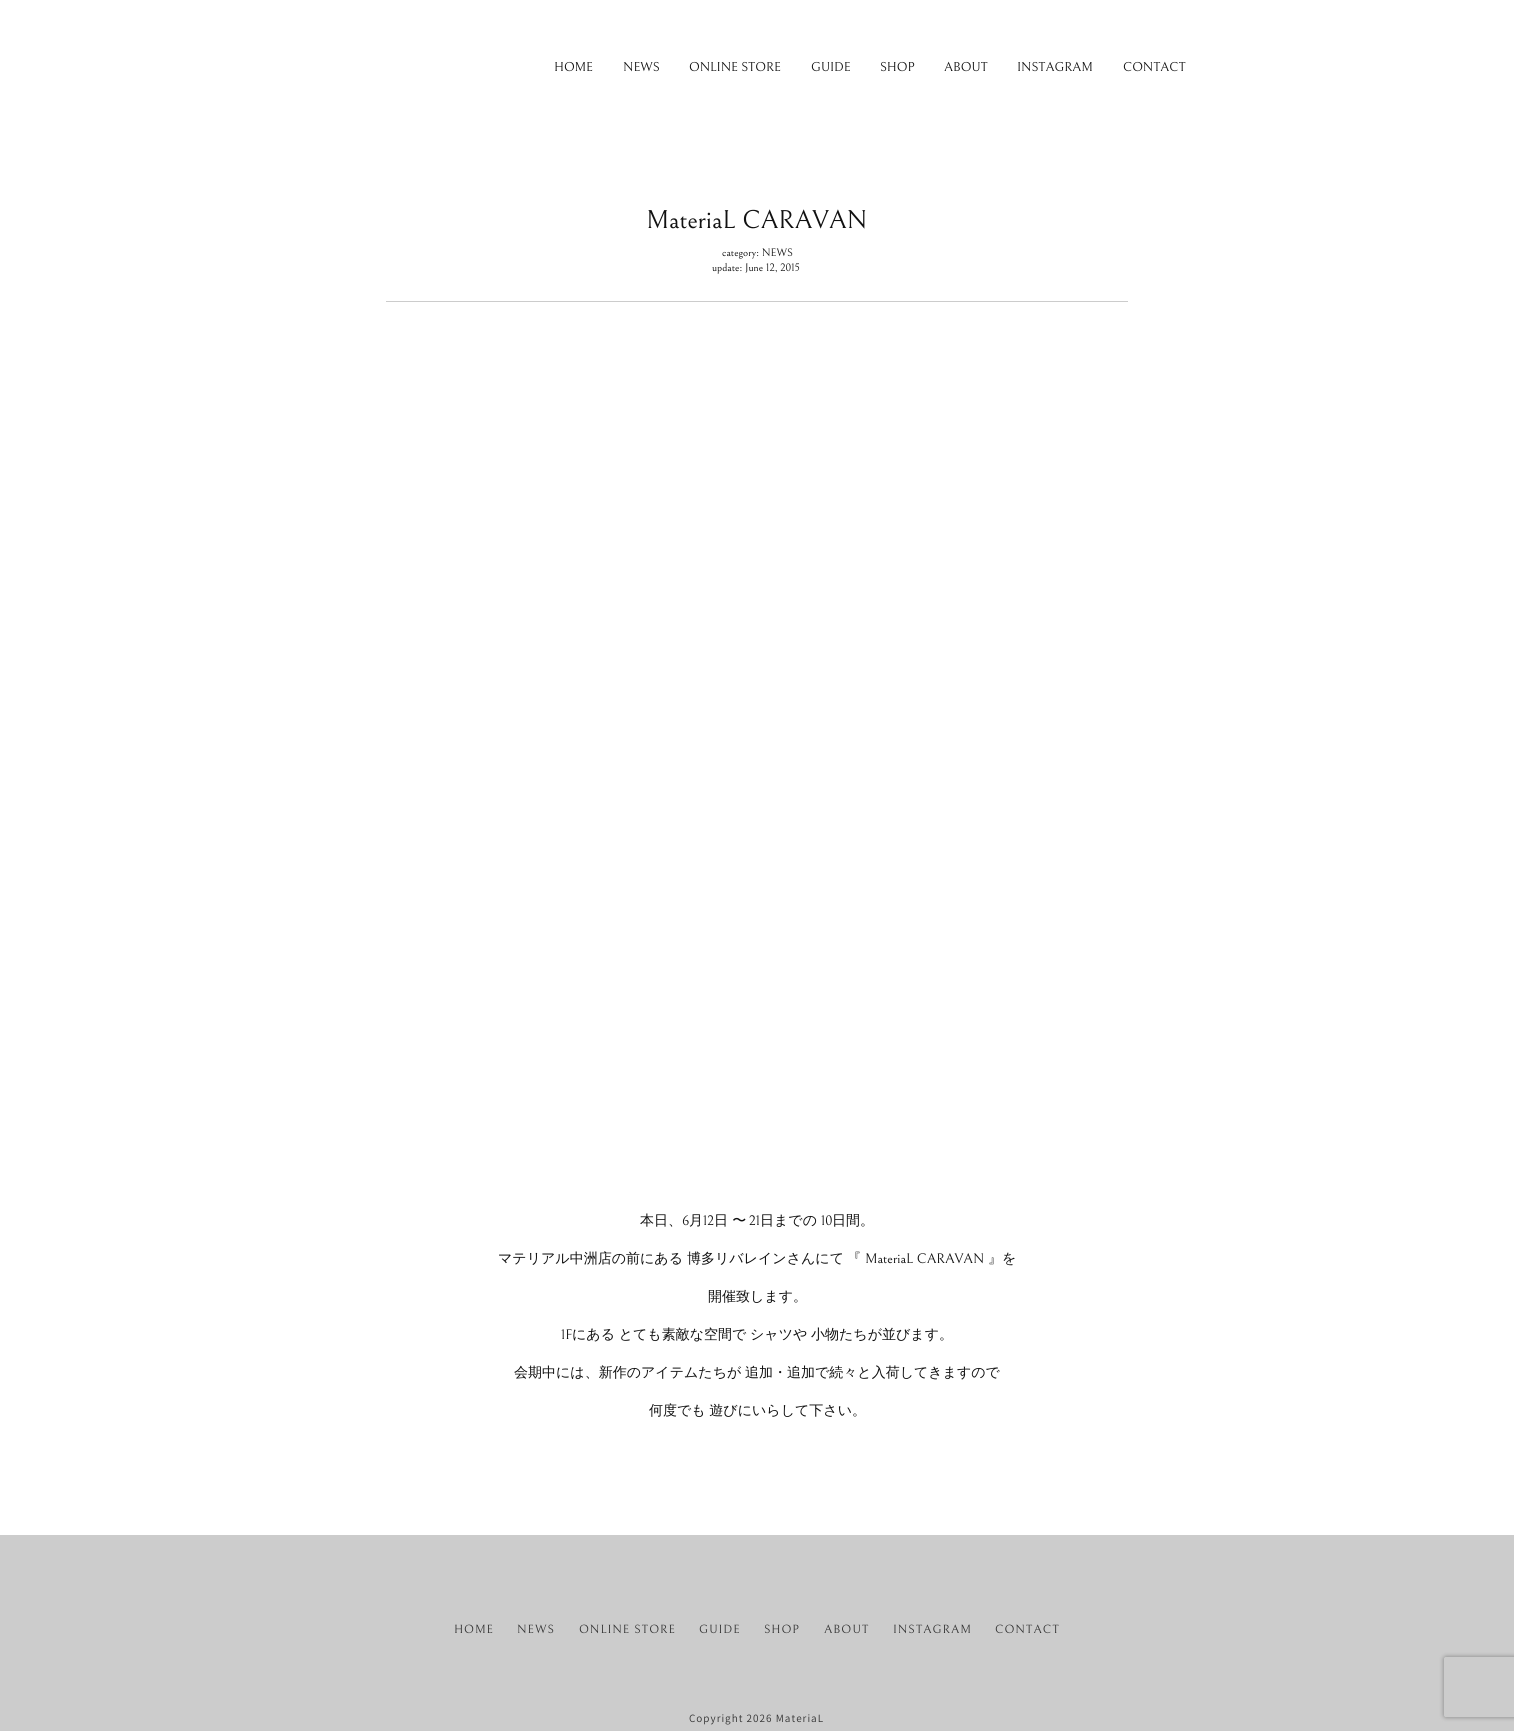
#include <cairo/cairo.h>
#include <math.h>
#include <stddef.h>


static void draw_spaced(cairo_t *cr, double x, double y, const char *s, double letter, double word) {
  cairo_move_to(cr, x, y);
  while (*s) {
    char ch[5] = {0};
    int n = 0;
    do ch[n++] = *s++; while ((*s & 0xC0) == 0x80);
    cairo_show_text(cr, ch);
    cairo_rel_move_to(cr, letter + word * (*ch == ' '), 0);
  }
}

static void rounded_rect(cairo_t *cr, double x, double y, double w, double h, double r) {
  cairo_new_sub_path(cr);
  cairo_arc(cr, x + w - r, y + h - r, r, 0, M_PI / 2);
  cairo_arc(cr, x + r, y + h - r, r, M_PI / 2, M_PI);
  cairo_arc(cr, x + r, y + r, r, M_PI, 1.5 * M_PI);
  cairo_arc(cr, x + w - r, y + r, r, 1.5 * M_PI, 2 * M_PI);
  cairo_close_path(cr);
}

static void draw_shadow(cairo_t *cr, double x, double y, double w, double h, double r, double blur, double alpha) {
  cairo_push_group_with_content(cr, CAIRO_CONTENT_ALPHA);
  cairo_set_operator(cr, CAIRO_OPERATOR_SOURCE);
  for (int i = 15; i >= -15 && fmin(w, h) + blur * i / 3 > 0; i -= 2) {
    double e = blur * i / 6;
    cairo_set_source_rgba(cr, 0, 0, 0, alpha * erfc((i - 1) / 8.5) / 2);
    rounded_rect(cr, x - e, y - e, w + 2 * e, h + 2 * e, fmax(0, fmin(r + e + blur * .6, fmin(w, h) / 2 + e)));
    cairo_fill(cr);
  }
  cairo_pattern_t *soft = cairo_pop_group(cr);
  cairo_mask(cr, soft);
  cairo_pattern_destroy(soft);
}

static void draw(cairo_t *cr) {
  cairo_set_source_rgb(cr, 1, 1, 1);
  cairo_paint(cr);
  cairo_set_source_rgb(cr, 204 / 255.0, 204 / 255.0, 204 / 255.0);
  cairo_rectangle(cr, 386, 301, 742, 1);
  cairo_fill(cr);
  cairo_rectangle(cr, 0, 1535, 1514, 196);
  cairo_fill(cr);
  cairo_save(cr);
  cairo_set_fill_rule(cr, CAIRO_FILL_RULE_EVEN_ODD);
  cairo_new_path(cr);
  cairo_move_to(cr, 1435, 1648);
  cairo_line_to(cr, 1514, 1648);
  cairo_line_to(cr, 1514, 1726);
  cairo_line_to(cr, 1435, 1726);
  cairo_close_path(cr);
  cairo_move_to(cr, 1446, 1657);
  cairo_line_to(cr, 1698, 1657);
  cairo_curve_to(cr, 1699, 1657, 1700, 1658, 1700, 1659);
  cairo_line_to(cr, 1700, 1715);
  cairo_curve_to(cr, 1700, 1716, 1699, 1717, 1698, 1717);
  cairo_line_to(cr, 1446, 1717);
  cairo_curve_to(cr, 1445, 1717, 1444, 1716, 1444, 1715);
  cairo_line_to(cr, 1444, 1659);
  cairo_curve_to(cr, 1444, 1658, 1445, 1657, 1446, 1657);
  cairo_close_path(cr);
  cairo_clip(cr);
  cairo_set_source_rgb(cr, 128 / 255.0, 128 / 255.0, 128 / 255.0);
  draw_shadow(cr, 1444, 1657, 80, 60, 2, 2.5, 1);
  cairo_restore(cr);
  cairo_select_font_face(cr, "Bellefair", CAIRO_FONT_SLANT_NORMAL, CAIRO_FONT_WEIGHT_NORMAL);
  cairo_set_font_size(cr, 13);
  cairo_set_source_rgb(cr, 17 / 255.0, 17 / 255.0, 17 / 255.0);
  cairo_move_to(cr, 554, 71);
  cairo_show_text(cr, "HOME");
  cairo_move_to(cr, 623, 71);
  cairo_show_text(cr, "NEWS");
  cairo_move_to(cr, 689, 71);
  cairo_show_text(cr, "ONLINE STORE");
  cairo_move_to(cr, 811, 71);
  cairo_show_text(cr, "GUIDE");
  cairo_move_to(cr, 880, 71);
  cairo_show_text(cr, "SHOP");
  cairo_move_to(cr, 944, 71);
  cairo_show_text(cr, "ABOUT");
  cairo_move_to(cr, 1017, 71);
  cairo_show_text(cr, "INSTAGRAM");
  cairo_move_to(cr, 1123, 71);
  cairo_show_text(cr, "CONTACT");
  cairo_set_font_size(cr, 26);
  cairo_move_to(cr, 646, 228);
  cairo_show_text(cr, "MateriaL CARAVAN");
  cairo_set_font_size(cr, 11);
  cairo_move_to(cr, 722, 256);
  cairo_show_text(cr, "category: NEWS");
  cairo_move_to(cr, 712, 271);
  cairo_show_text(cr, "update: June 12, 2015");
  cairo_select_font_face(cr, "WenQuanYi Zen Hei Medium", CAIRO_FONT_SLANT_NORMAL, CAIRO_FONT_WEIGHT_NORMAL);
  cairo_set_font_size(cr, 14);
  cairo_move_to(cr, 640, 1225);
  cairo_show_text(cr, "本日、");
  cairo_select_font_face(cr, "Bellefair", CAIRO_FONT_SLANT_NORMAL, CAIRO_FONT_WEIGHT_NORMAL);
  cairo_move_to(cr, 682, 1225);
  cairo_show_text(cr, "6");
  cairo_select_font_face(cr, "WenQuanYi Zen Hei Medium", CAIRO_FONT_SLANT_NORMAL, CAIRO_FONT_WEIGHT_NORMAL);
  cairo_move_to(cr, 689, 1225);
  cairo_show_text(cr, "月");
  cairo_select_font_face(cr, "Bellefair", CAIRO_FONT_SLANT_NORMAL, CAIRO_FONT_WEIGHT_NORMAL);
  cairo_move_to(cr, 703, 1225);
  cairo_show_text(cr, "12");
  cairo_select_font_face(cr, "WenQuanYi Zen Hei Medium", CAIRO_FONT_SLANT_NORMAL, CAIRO_FONT_WEIGHT_NORMAL);
  cairo_move_to(cr, 714, 1225);
  cairo_show_text(cr, "日 〜");
  cairo_select_font_face(cr, "Bellefair", CAIRO_FONT_SLANT_NORMAL, CAIRO_FONT_WEIGHT_NORMAL);
  cairo_move_to(cr, 749, 1225);
  cairo_show_text(cr, "21");
  cairo_select_font_face(cr, "WenQuanYi Zen Hei Medium", CAIRO_FONT_SLANT_NORMAL, CAIRO_FONT_WEIGHT_NORMAL);
  cairo_move_to(cr, 760, 1225);
  cairo_show_text(cr, "日までの");
  cairo_select_font_face(cr, "Bellefair", CAIRO_FONT_SLANT_NORMAL, CAIRO_FONT_WEIGHT_NORMAL);
  cairo_move_to(cr, 821, 1225);
  cairo_show_text(cr, "10");
  cairo_select_font_face(cr, "WenQuanYi Zen Hei Medium", CAIRO_FONT_SLANT_NORMAL, CAIRO_FONT_WEIGHT_NORMAL);
  cairo_move_to(cr, 832, 1225);
  cairo_show_text(cr, "日間。");
  cairo_move_to(cr, 498, 1263);
  cairo_show_text(cr, "マテリアル中洲店の前にある");
  cairo_move_to(cr, 687, 1263);
  cairo_show_text(cr, "博多リバレインさんにて");
  cairo_move_to(cr, 847, 1263);
  cairo_show_text(cr, "『");
  cairo_select_font_face(cr, "Bellefair", CAIRO_FONT_SLANT_NORMAL, CAIRO_FONT_WEIGHT_NORMAL);
  cairo_move_to(cr, 865, 1263);
  cairo_show_text(cr, "MateriaL CARAVAN");
  cairo_select_font_face(cr, "WenQuanYi Zen Hei Medium", CAIRO_FONT_SLANT_NORMAL, CAIRO_FONT_WEIGHT_NORMAL);
  cairo_move_to(cr, 988, 1263);
  cairo_show_text(cr, "』を");
  cairo_move_to(cr, 708, 1301);
  cairo_show_text(cr, "開催致します。");
  cairo_select_font_face(cr, "Bellefair", CAIRO_FONT_SLANT_NORMAL, CAIRO_FONT_WEIGHT_NORMAL);
  cairo_move_to(cr, 561, 1339);
  cairo_show_text(cr, "1F");
  cairo_select_font_face(cr, "WenQuanYi Zen Hei Medium", CAIRO_FONT_SLANT_NORMAL, CAIRO_FONT_WEIGHT_NORMAL);
  draw_spaced(cr, 572, 1339, "にある とても素敵な空間で シャツや 小物たちが並びます。", 0, -0.5);
  draw_spaced(cr, 514, 1377, "会期中には、新作のアイテムたちが 追加・追加で続々と入荷してきますので", 0, -0.5);
  draw_spaced(cr, 649, 1415, "何度でも 遊びにいらして下さい。", 0, -0.5);
  cairo_select_font_face(cr, "Bellefair", CAIRO_FONT_SLANT_NORMAL, CAIRO_FONT_WEIGHT_NORMAL);
  cairo_set_font_size(cr, 12);
  cairo_set_source_rgb(cr, 51 / 255.0, 51 / 255.0, 51 / 255.0);
  draw_spaced(cr, 454, 1633, "HOME", 1, 0);
  draw_spaced(cr, 517, 1633, "NEWS", 1, 0);
  draw_spaced(cr, 579, 1633, "ONLINE STORE", 1, 0);
  draw_spaced(cr, 699, 1633, "GUIDE", 1, 0);
  draw_spaced(cr, 764, 1633, "SHOP", 1, 0);
  draw_spaced(cr, 824, 1633, "ABOUT", 1, 0);
  draw_spaced(cr, 893, 1633, "INSTAGRAM", 1, 0);
  draw_spaced(cr, 995, 1633, "CONTACT", 1, 0);
  cairo_select_font_face(cr, "Noto Sans JP Light", CAIRO_FONT_SLANT_NORMAL, CAIRO_FONT_WEIGHT_NORMAL);
  cairo_set_font_size(cr, 10);
  draw_spaced(cr, 689, 1722, "Copyright 2026 MateriaL", 1, 0);
}

int main(void) {
  cairo_surface_t *surface = cairo_image_surface_create(CAIRO_FORMAT_RGB24, 1514, 1731);
  cairo_t *cr = cairo_create(surface);
  cairo_font_options_t *options = cairo_font_options_create();
  cairo_font_options_set_hint_metrics(options, CAIRO_HINT_METRICS_OFF);
  cairo_font_options_set_hint_style(options, CAIRO_HINT_STYLE_NONE);
  cairo_set_font_options(cr, options);
  cairo_set_miter_limit(cr, 4);
  draw(cr);
  cairo_surface_write_to_png(surface, "out.png");
  cairo_font_options_destroy(options);
  cairo_destroy(cr);
  cairo_surface_destroy(surface);
  return 0;
}
